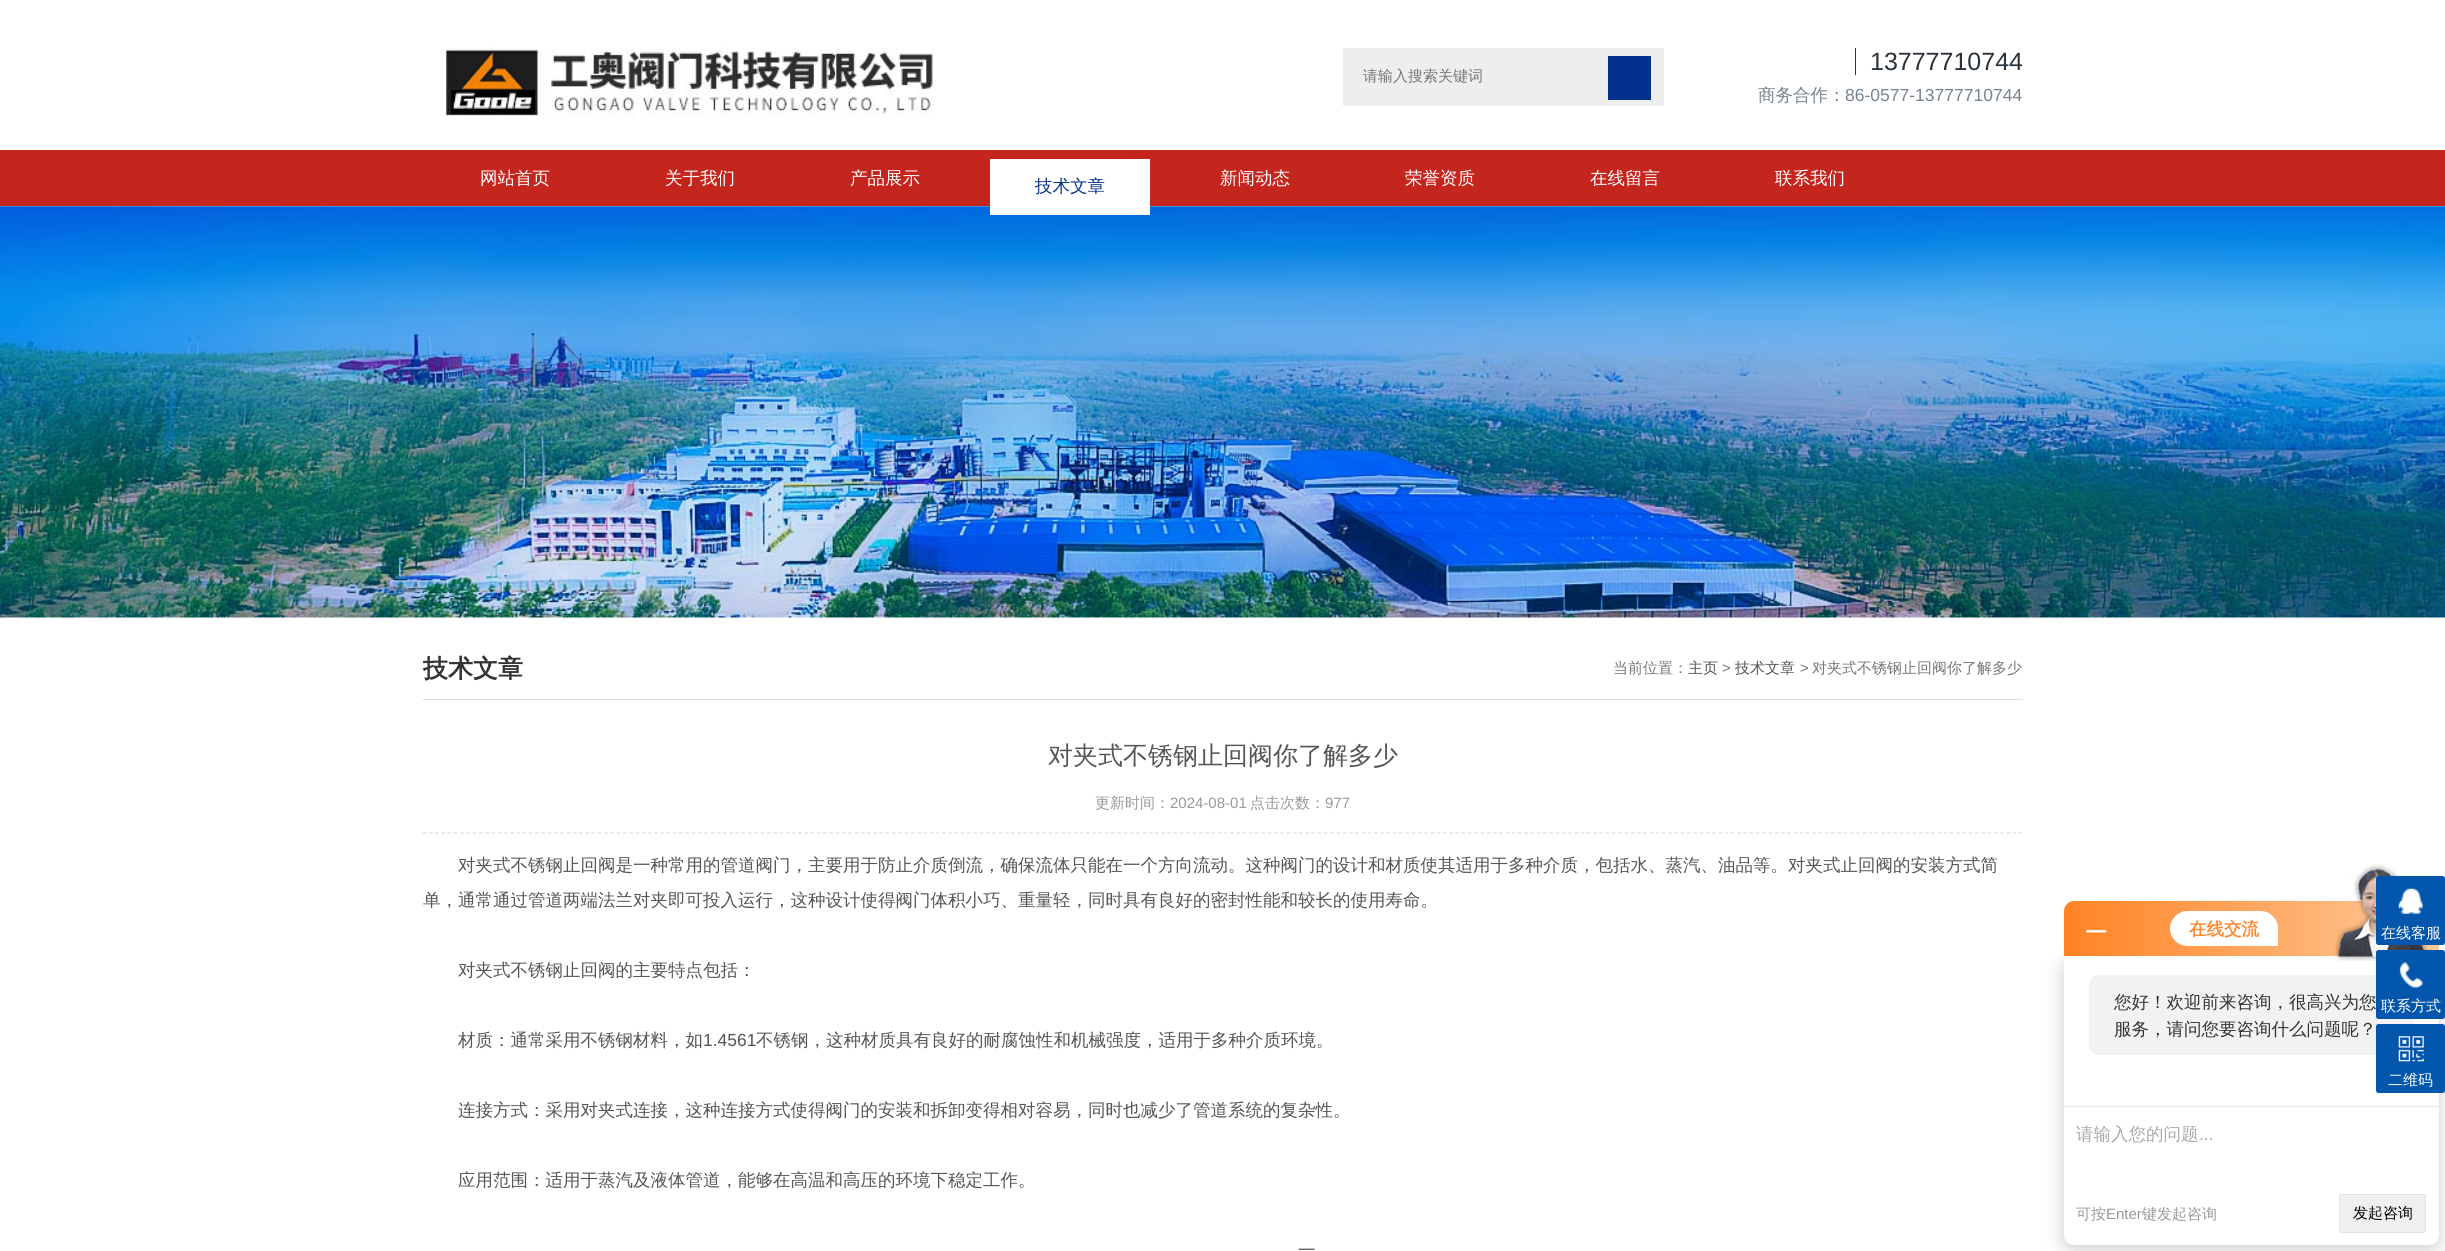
#include <cairo/cairo.h>
#include <math.h>
#include <stddef.h>


static void rounded_rect(cairo_t *cr, double x, double y, double w, double h, double r) {
  cairo_new_sub_path(cr);
  cairo_arc(cr, x + w - r, y + h - r, r, 0, M_PI / 2);
  cairo_arc(cr, x + r, y + h - r, r, M_PI / 2, M_PI);
  cairo_arc(cr, x + r, y + r, r, M_PI, 1.5 * M_PI);
  cairo_arc(cr, x + w - r, y + r, r, 1.5 * M_PI, 2 * M_PI);
  cairo_close_path(cr);
}

static void draw_shadow(cairo_t *cr, double x, double y, double w, double h, double r, double blur, double alpha) {
  cairo_push_group_with_content(cr, CAIRO_CONTENT_ALPHA);
  cairo_set_operator(cr, CAIRO_OPERATOR_SOURCE);
  for (int i = 15; i >= -15 && fmin(w, h) + blur * i / 3 > 0; i -= 2) {
    double e = blur * i / 6;
    cairo_set_source_rgba(cr, 0, 0, 0, alpha * erfc((i - 1) / 8.5) / 2);
    rounded_rect(cr, x - e, y - e, w + 2 * e, h + 2 * e, fmax(0, fmin(r + e + blur * .6, fmin(w, h) / 2 + e)));
    cairo_fill(cr);
  }
  cairo_pattern_t *soft = cairo_pop_group(cr);
  cairo_mask(cr, soft);
  cairo_pattern_destroy(soft);
}

static void draw_image(cairo_t *cr, const char *path, double x, double y, double w, double h) {
  cairo_surface_t *image = cairo_image_surface_create_from_png(path);
  cairo_save(cr);
  cairo_set_source_surface(cr, image, x, y);
  cairo_rectangle(cr, x, y, w, h);
  cairo_fill(cr);
  cairo_restore(cr);
  cairo_surface_destroy(image);
}

static void draw(cairo_t *cr) {
  cairo_pattern_t *gradient;
  cairo_set_source_rgb(cr, 1, 1, 1);
  cairo_paint(cr);
  draw_image(cr, "images/1.png", 445, 47, 489, 71);
  cairo_set_source_rgb(cr, 238 / 255.0, 238 / 255.0, 238 / 255.0);
  cairo_rectangle(cr, 1343, 48, 321, 58);
  cairo_fill(cr);
  cairo_set_source_rgb(cr, 2 / 255.0, 50 / 255.0, 141 / 255.0);
  cairo_rectangle(cr, 1608, 56, 43, 44);
  cairo_fill(cr);
  cairo_set_source_rgb(cr, 42 / 255.0, 51 / 255.0, 60 / 255.0);
  cairo_rectangle(cr, 1855, 48, 1, 27);
  cairo_fill(cr);
  cairo_set_source_rgb(cr, 196 / 255.0, 38 / 255.0, 29 / 255.0);
  cairo_rectangle(cr, 0, 150, 2445, 56);
  cairo_fill(cr);
  draw_image(cr, "images/2.png", 0, 206, 2445, 412);
  cairo_set_source_rgb(cr, 1, 1, 1);
  cairo_rectangle(cr, 990, 159, 160, 56);
  cairo_fill(cr);
  cairo_set_source_rgb(cr, 222 / 255.0, 222 / 255.0, 222 / 255.0);
  cairo_rectangle(cr, 423, 699, 1600, 1);
  cairo_fill(cr);
  cairo_new_path(cr);
  cairo_move_to(cr, 422.5, 833);
  cairo_line_to(cr, 2022.5, 833);
  cairo_set_line_width(cr, 1.2);
  cairo_set_dash(cr, (double[]){3.75, 2.51}, 2, 0);
  cairo_stroke(cr);
  cairo_set_source_rgb(cr, 0, 0, 0);
  draw_shadow(cr, 2064, 961, 375, 289, 10, 10, 0.2);
  gradient = cairo_pattern_create_linear(2064, 929, 2439, 929);
  cairo_pattern_add_color_stop_rgba(gradient, 0, 1, 131 / 255.0, 36 / 255.0, 1);
  cairo_pattern_add_color_stop_rgba(gradient, 1, 254 / 255.0, 203 / 255.0, 156 / 255.0, 1);
  cairo_set_source(cr, gradient);
  cairo_pattern_destroy(gradient);
  cairo_new_path(cr);
  cairo_move_to(cr, 2074, 901);
  cairo_line_to(cr, 2429, 901);
  cairo_curve_to(cr, 2434.5, 901, 2439, 905.5, 2439, 911);
  cairo_line_to(cr, 2439, 956);
  cairo_line_to(cr, 2064, 956);
  cairo_line_to(cr, 2064, 911);
  cairo_curve_to(cr, 2064, 905.5, 2068.5, 901, 2074, 901);
  cairo_close_path(cr);
  cairo_fill(cr);
  draw_image(cr, "images/3.png", 2086, 929, 21, 4);
  cairo_set_source_rgb(cr, 1, 1, 1);
  cairo_new_path(cr);
  cairo_move_to(cr, 2187.5, 911);
  cairo_line_to(cr, 2260.5, 911);
  cairo_curve_to(cr, 2270, 911, 2278, 919, 2278, 928.5);
  cairo_line_to(cr, 2278, 946);
  cairo_line_to(cr, 2187.5, 946);
  cairo_curve_to(cr, 2178, 946, 2170, 938, 2170, 928.5);
  cairo_curve_to(cr, 2170, 919, 2178, 911, 2187.5, 911);
  cairo_close_path(cr);
  cairo_fill(cr);
  cairo_new_path(cr);
  cairo_move_to(cr, 2064, 956);
  cairo_line_to(cr, 2439, 956);
  cairo_line_to(cr, 2439, 1235);
  cairo_curve_to(cr, 2439, 1240.5, 2434.5, 1245, 2429, 1245);
  cairo_line_to(cr, 2074, 1245);
  cairo_curve_to(cr, 2068.5, 1245, 2064, 1240.5, 2064, 1235);
  cairo_close_path(cr);
  cairo_fill(cr);
  draw_image(cr, "images/4.png", 2334, 864, 95, 97);
  cairo_set_source_rgb(cr, 242 / 255.0, 242 / 255.0, 242 / 255.0);
  rounded_rect(cr, 2089, 975, 325, 80, 10);
  cairo_fill(cr);
  cairo_set_source_rgb(cr, 234 / 255.0, 234 / 255.0, 234 / 255.0);
  cairo_rectangle(cr, 2064, 1106, 375, 1);
  cairo_fill(cr);
  cairo_set_source_rgb(cr, 240 / 255.0, 239 / 255.0, 237 / 255.0);
  rounded_rect(cr, 2339.5, 1194.5, 86, 38, 2);
  cairo_fill_preserve(cr);
  cairo_set_source_rgb(cr, 226 / 255.0, 226 / 255.0, 226 / 255.0);
  cairo_set_line_width(cr, 1);
  cairo_set_dash(cr, NULL, 0, 0);
  cairo_stroke(cr);
  cairo_set_source_rgb(cr, 2 / 255.0, 86 / 255.0, 172 / 255.0);
  rounded_rect(cr, 2376, 876, 69, 69, 2.5);
  cairo_fill(cr);
  draw_image(cr, "images/5.png", 2398, 888, 25, 26);
  rounded_rect(cr, 2376, 950, 69, 69, 2.5);
  cairo_fill(cr);
  draw_image(cr, "images/6.png", 2399, 962, 24, 26);
  rounded_rect(cr, 2376, 1024, 69, 69, 2.5);
  cairo_fill(cr);
  draw_image(cr, "images/7.png", 2398, 1036, 26, 26);
  cairo_select_font_face(cr, "WenQuanYi Zen Hei Medium", CAIRO_FONT_SLANT_NORMAL, CAIRO_FONT_WEIGHT_NORMAL);
  cairo_set_font_size(cr, 15);
  cairo_set_source_rgb(cr, 119 / 255.0, 119 / 255.0, 119 / 255.0);
  cairo_move_to(cr, 1363, 81);
  cairo_show_text(cr, "请输入搜索关键词");
  cairo_select_font_face(cr, "Liberation Sans", CAIRO_FONT_SLANT_NORMAL, CAIRO_FONT_WEIGHT_NORMAL);
  cairo_set_font_size(cr, 25);
  cairo_set_source_rgb(cr, 42 / 255.0, 51 / 255.0, 60 / 255.0);
  cairo_move_to(cr, 1870, 70);
  cairo_show_text(cr, "13777710744");
  cairo_select_font_face(cr, "WenQuanYi Zen Hei Medium", CAIRO_FONT_SLANT_NORMAL, CAIRO_FONT_WEIGHT_NORMAL);
  cairo_set_font_size(cr, 17.5);
  cairo_set_source_rgb(cr, 118 / 255.0, 131 / 255.0, 143 / 255.0);
  cairo_move_to(cr, 1758, 101);
  cairo_show_text(cr, "商务合作：");
  cairo_select_font_face(cr, "Liberation Sans", CAIRO_FONT_SLANT_NORMAL, CAIRO_FONT_WEIGHT_NORMAL);
  cairo_move_to(cr, 1845, 101);
  cairo_show_text(cr, "86-0577-13777710744");
  cairo_select_font_face(cr, "WenQuanYi Zen Hei Medium", CAIRO_FONT_SLANT_NORMAL, CAIRO_FONT_WEIGHT_NORMAL);
  cairo_set_source_rgb(cr, 1, 1, 1);
  cairo_move_to(cr, 480, 184);
  cairo_show_text(cr, "网站首页");
  cairo_move_to(cr, 665, 184);
  cairo_show_text(cr, "关于我们");
  cairo_move_to(cr, 850, 184);
  cairo_show_text(cr, "产品展示");
  cairo_set_source_rgb(cr, 2 / 255.0, 50 / 255.0, 141 / 255.0);
  cairo_move_to(cr, 1035, 192);
  cairo_show_text(cr, "技术文章");
  cairo_set_source_rgb(cr, 1, 1, 1);
  cairo_move_to(cr, 1220, 184);
  cairo_show_text(cr, "新闻动态");
  cairo_move_to(cr, 1405, 184);
  cairo_show_text(cr, "荣誉资质");
  cairo_move_to(cr, 1590, 184);
  cairo_show_text(cr, "在线留言");
  cairo_move_to(cr, 1775, 184);
  cairo_show_text(cr, "联系我们");
  cairo_save(cr);
  cairo_rectangle(cr, 423, 643, 1600, 56);
  cairo_clip(cr);
  cairo_select_font_face(cr, "WenQuanYi Zen Hei", CAIRO_FONT_SLANT_NORMAL, CAIRO_FONT_WEIGHT_BOLD);
  cairo_set_font_size(cr, 25);
  cairo_set_source_rgb(cr, 51 / 255.0, 51 / 255.0, 51 / 255.0);
  cairo_move_to(cr, 423, 677);
  cairo_show_text(cr, "技术文章");
  cairo_restore(cr);
  cairo_set_font_size(cr, 15);
  cairo_set_source_rgb(cr, 119 / 255.0, 119 / 255.0, 119 / 255.0);
  cairo_move_to(cr, 1613, 673);
  cairo_show_text(cr, "当前位置：");
  cairo_set_source_rgb(cr, 85 / 255.0, 85 / 255.0, 85 / 255.0);
  cairo_move_to(cr, 1688, 673);
  cairo_show_text(cr, "主页");
  cairo_select_font_face(cr, "Liberation Sans", CAIRO_FONT_SLANT_NORMAL, CAIRO_FONT_WEIGHT_NORMAL);
  cairo_set_source_rgb(cr, 119 / 255.0, 119 / 255.0, 119 / 255.0);
  cairo_move_to(cr, 1722, 673);
  cairo_show_text(cr, ">");
  cairo_select_font_face(cr, "WenQuanYi Zen Hei Medium", CAIRO_FONT_SLANT_NORMAL, CAIRO_FONT_WEIGHT_NORMAL);
  cairo_set_source_rgb(cr, 85 / 255.0, 85 / 255.0, 85 / 255.0);
  cairo_move_to(cr, 1735, 673);
  cairo_show_text(cr, "技术文章");
  cairo_select_font_face(cr, "Liberation Sans", CAIRO_FONT_SLANT_NORMAL, CAIRO_FONT_WEIGHT_NORMAL);
  cairo_set_source_rgb(cr, 119 / 255.0, 119 / 255.0, 119 / 255.0);
  cairo_move_to(cr, 1800, 673);
  cairo_show_text(cr, ">");
  cairo_select_font_face(cr, "WenQuanYi Zen Hei Medium", CAIRO_FONT_SLANT_NORMAL, CAIRO_FONT_WEIGHT_NORMAL);
  cairo_move_to(cr, 1812, 673);
  cairo_show_text(cr, "对夹式不锈钢止回阀你了解多少");
  cairo_set_font_size(cr, 25);
  cairo_set_source_rgb(cr, 85 / 255.0, 85 / 255.0, 85 / 255.0);
  cairo_move_to(cr, 1048, 764);
  cairo_show_text(cr, "对夹式不锈钢止回阀你了解多少");
  cairo_set_font_size(cr, 15);
  cairo_set_source_rgb(cr, 153 / 255.0, 153 / 255.0, 153 / 255.0);
  cairo_move_to(cr, 1095, 808);
  cairo_show_text(cr, "更新时间：");
  cairo_select_font_face(cr, "Liberation Sans", CAIRO_FONT_SLANT_NORMAL, CAIRO_FONT_WEIGHT_NORMAL);
  cairo_move_to(cr, 1170, 808);
  cairo_show_text(cr, "2024-08-01");
  cairo_select_font_face(cr, "WenQuanYi Zen Hei Medium", CAIRO_FONT_SLANT_NORMAL, CAIRO_FONT_WEIGHT_NORMAL);
  cairo_move_to(cr, 1250, 808);
  cairo_show_text(cr, "点击次数：");
  cairo_select_font_face(cr, "Liberation Sans", CAIRO_FONT_SLANT_NORMAL, CAIRO_FONT_WEIGHT_NORMAL);
  cairo_move_to(cr, 1325, 808);
  cairo_show_text(cr, "977");
  cairo_select_font_face(cr, "WenQuanYi Zen Hei Medium", CAIRO_FONT_SLANT_NORMAL, CAIRO_FONT_WEIGHT_NORMAL);
  cairo_set_font_size(cr, 17.5);
  cairo_set_source_rgb(cr, 85 / 255.0, 85 / 255.0, 85 / 255.0);
  cairo_move_to(cr, 458, 871);
  cairo_show_text(cr, "对夹式不锈钢止回阀是一种常用的管道阀门，主要用于防止介质倒流，确保流体只能在一个方向流动。这种阀门的设计和材质使其适用于多种介质，包括水、蒸汽、油品等。对夹式止回阀的安装方式简");
  cairo_move_to(cr, 423, 906);
  cairo_show_text(cr, "单，通常通过管道两端法兰对夹即可投入运行，这种设计使得阀门体积小巧、重量轻，同时具有良好的密封性能和较长的使用寿命。");
  cairo_move_to(cr, 458, 976);
  cairo_show_text(cr, "对夹式不锈钢止回阀的主要特点包括：");
  cairo_move_to(cr, 458, 1046);
  cairo_show_text(cr, "材质：通常采用不锈钢材料，如");
  cairo_select_font_face(cr, "Liberation Sans", CAIRO_FONT_SLANT_NORMAL, CAIRO_FONT_WEIGHT_NORMAL);
  cairo_move_to(cr, 703, 1046);
  cairo_show_text(cr, "1.4561");
  cairo_select_font_face(cr, "WenQuanYi Zen Hei Medium", CAIRO_FONT_SLANT_NORMAL, CAIRO_FONT_WEIGHT_NORMAL);
  cairo_move_to(cr, 756, 1046);
  cairo_show_text(cr, "不锈钢，这种材质具有良好的耐腐蚀性和机械强度，适用于多种介质环境。");
  cairo_move_to(cr, 458, 1116);
  cairo_show_text(cr, "连接方式：采用对夹式连接，这种连接方式使得阀门的安装和拆卸变得相对容易，同时也减少了管道系统的复杂性。");
  cairo_move_to(cr, 458, 1186);
  cairo_show_text(cr, "应用范围：适用于蒸汽及液体管道，能够在高温和高压的环境下稳定工作。");
  cairo_move_to(cr, 1298, 1256);
  cairo_show_text(cr, "一");
  cairo_select_font_face(cr, "WenQuanYi Zen Hei", CAIRO_FONT_SLANT_NORMAL, CAIRO_FONT_WEIGHT_BOLD);
  cairo_set_source_rgb(cr, 251 / 255.0, 139 / 255.0, 54 / 255.0);
  cairo_move_to(cr, 2189, 935);
  cairo_show_text(cr, "在线交流");
  cairo_select_font_face(cr, "WenQuanYi Zen Hei Medium", CAIRO_FONT_SLANT_NORMAL, CAIRO_FONT_WEIGHT_NORMAL);
  cairo_set_source_rgb(cr, 51 / 255.0, 51 / 255.0, 51 / 255.0);
  cairo_move_to(cr, 2114, 1008);
  cairo_show_text(cr, "您好！欢迎前来咨询，很高兴为您");
  cairo_move_to(cr, 2114, 1035);
  cairo_show_text(cr, "服务，请问您要咨询什么问题呢？");
  cairo_set_source_rgb(cr, 170 / 255.0, 170 / 255.0, 170 / 255.0);
  cairo_move_to(cr, 2076, 1140);
  cairo_show_text(cr, "请输入您的问题");
  cairo_select_font_face(cr, "Liberation Sans", CAIRO_FONT_SLANT_NORMAL, CAIRO_FONT_WEIGHT_NORMAL);
  cairo_move_to(cr, 2199, 1140);
  cairo_show_text(cr, "...");
  cairo_select_font_face(cr, "WenQuanYi Zen Hei Medium", CAIRO_FONT_SLANT_NORMAL, CAIRO_FONT_WEIGHT_NORMAL);
  cairo_set_font_size(cr, 15);
  cairo_set_source_rgb(cr, 153 / 255.0, 153 / 255.0, 153 / 255.0);
  cairo_move_to(cr, 2076, 1219);
  cairo_show_text(cr, "可按");
  cairo_select_font_face(cr, "Liberation Sans", CAIRO_FONT_SLANT_NORMAL, CAIRO_FONT_WEIGHT_NORMAL);
  cairo_move_to(cr, 2106, 1219);
  cairo_show_text(cr, "Enter");
  cairo_select_font_face(cr, "WenQuanYi Zen Hei Medium", CAIRO_FONT_SLANT_NORMAL, CAIRO_FONT_WEIGHT_NORMAL);
  cairo_move_to(cr, 2142, 1219);
  cairo_show_text(cr, "键发起咨询");
  cairo_set_source_rgb(cr, 0, 0, 0);
  cairo_move_to(cr, 2353, 1218);
  cairo_show_text(cr, "发起咨询");
  cairo_set_source_rgb(cr, 1, 1, 1);
  cairo_move_to(cr, 2381, 938);
  cairo_show_text(cr, "在线客服");
  cairo_move_to(cr, 2381, 1011);
  cairo_show_text(cr, "联系方式");
  cairo_move_to(cr, 2388, 1085);
  cairo_show_text(cr, "二维码");
}

int main(void) {
  cairo_surface_t *surface = cairo_image_surface_create(CAIRO_FORMAT_RGB24, 2445, 1251);
  cairo_t *cr = cairo_create(surface);
  cairo_font_options_t *options = cairo_font_options_create();
  cairo_font_options_set_hint_metrics(options, CAIRO_HINT_METRICS_OFF);
  cairo_font_options_set_hint_style(options, CAIRO_HINT_STYLE_NONE);
  cairo_set_font_options(cr, options);
  cairo_set_miter_limit(cr, 4);
  draw(cr);
  cairo_surface_write_to_png(surface, "out.png");
  cairo_font_options_destroy(options);
  cairo_destroy(cr);
  cairo_surface_destroy(surface);
  return 0;
}
